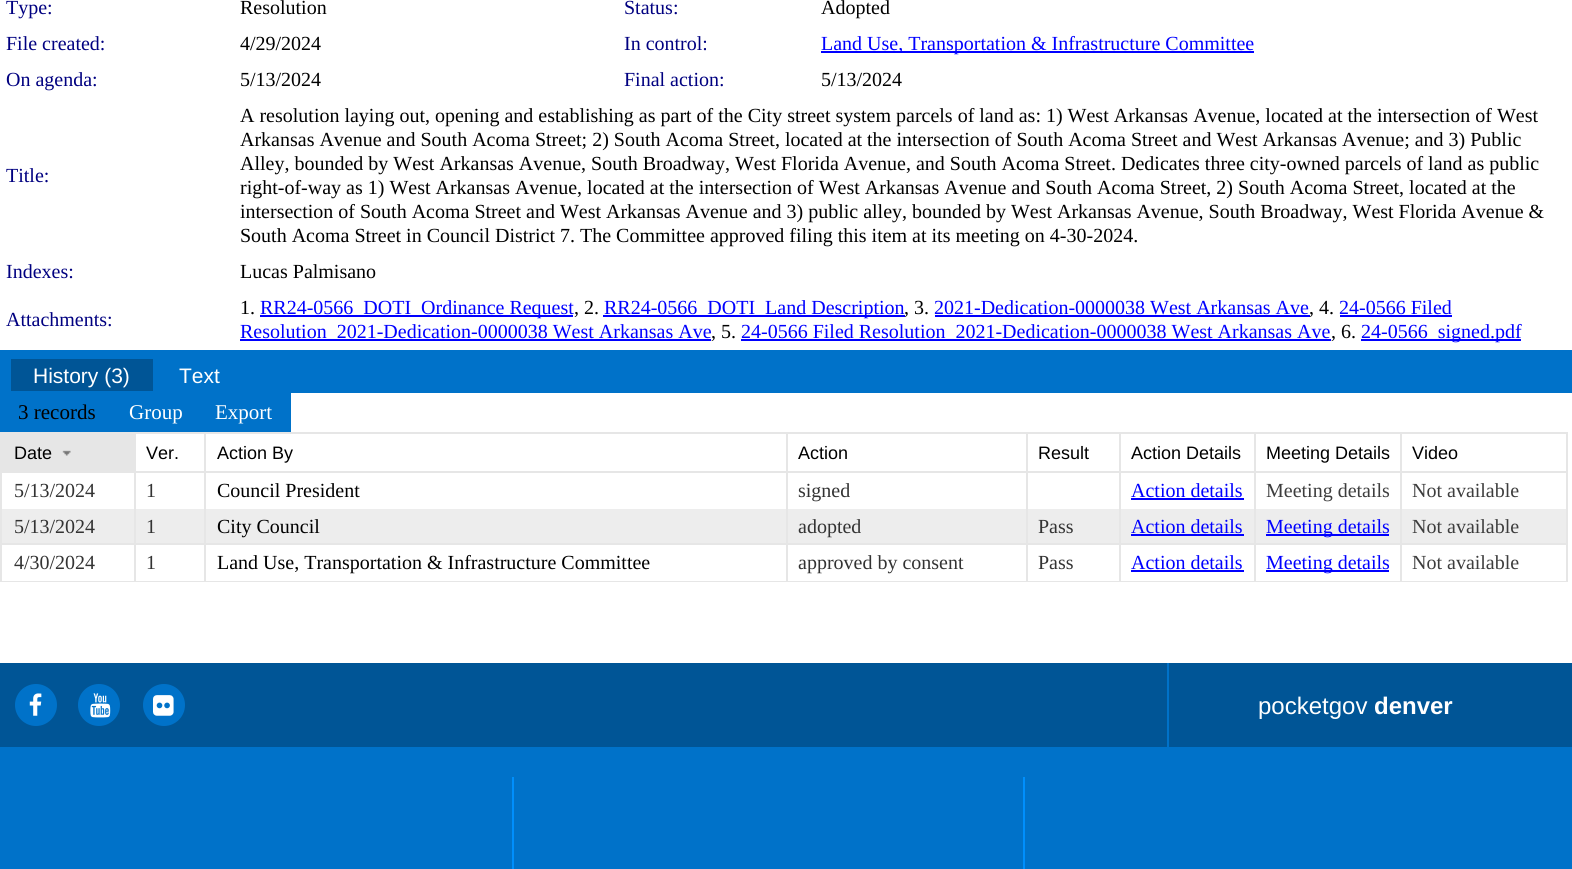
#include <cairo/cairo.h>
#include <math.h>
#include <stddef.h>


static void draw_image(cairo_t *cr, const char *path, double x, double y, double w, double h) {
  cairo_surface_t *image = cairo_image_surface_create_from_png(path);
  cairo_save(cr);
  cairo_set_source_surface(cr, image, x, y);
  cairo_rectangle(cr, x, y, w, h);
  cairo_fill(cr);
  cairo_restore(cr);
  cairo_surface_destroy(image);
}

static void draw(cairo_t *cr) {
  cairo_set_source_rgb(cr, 1, 1, 1);
  cairo_paint(cr);
  cairo_set_source_rgb(cr, 0, 0, 1);
  cairo_rectangle(cr, 821, 51, 433, 2);
  cairo_fill(cr);
  cairo_rectangle(cr, 260, 315, 313, 2);
  cairo_fill(cr);
  cairo_rectangle(cr, 603, 315, 302, 2);
  cairo_fill(cr);
  cairo_rectangle(cr, 935, 315, 375, 2);
  cairo_fill(cr);
  cairo_rectangle(cr, 1340, 315, 112, 2);
  cairo_fill(cr);
  cairo_rectangle(cr, 240, 339, 471, 2);
  cairo_fill(cr);
  cairo_rectangle(cr, 741, 339, 590, 2);
  cairo_fill(cr);
  cairo_rectangle(cr, 1361, 339, 160, 2);
  cairo_fill(cr);
  cairo_set_source_rgb(cr, 0, 114 / 255.0, 201 / 255.0);
  cairo_rectangle(cr, 0, 350, 1572, 43);
  cairo_fill(cr);
  cairo_set_source_rgb(cr, 0, 85 / 255.0, 150 / 255.0);
  cairo_rectangle(cr, 11, 359, 142, 32);
  cairo_fill(cr);
  cairo_set_source_rgb(cr, 0, 114 / 255.0, 201 / 255.0);
  cairo_rectangle(cr, 0, 393, 291, 39);
  cairo_fill(cr);
  cairo_rectangle(cr, 1, 433, 1566, 148);
  cairo_set_source_rgb(cr, 230 / 255.0, 230 / 255.0, 230 / 255.0);
  cairo_stroke(cr);
  cairo_rectangle(cr, 2, 434, 132, 39);
  cairo_fill(cr);
  draw_image(cr, "images/1.png", 62, 450, 9, 6);
  cairo_rectangle(cr, 134, 471, 1432, 2);
  cairo_fill(cr);
  cairo_rectangle(cr, 134, 434, 2, 75);
  cairo_fill(cr);
  cairo_rectangle(cr, 204, 434, 2, 75);
  cairo_fill(cr);
  cairo_rectangle(cr, 786, 434, 2, 75);
  cairo_fill(cr);
  cairo_rectangle(cr, 1026, 434, 2, 75);
  cairo_fill(cr);
  cairo_rectangle(cr, 1119, 434, 2, 75);
  cairo_fill(cr);
  cairo_rectangle(cr, 1254, 434, 2, 75);
  cairo_fill(cr);
  cairo_rectangle(cr, 1400, 434, 2, 75);
  cairo_fill(cr);
  cairo_set_source_rgb(cr, 0, 0, 1);
  cairo_rectangle(cr, 1131, 498, 113, 2);
  cairo_fill(cr);
  cairo_set_source_rgb(cr, 237 / 255.0, 237 / 255.0, 237 / 255.0);
  cairo_rectangle(cr, 2, 509, 1564, 34);
  cairo_fill(cr);
  cairo_set_source_rgb(cr, 230 / 255.0, 230 / 255.0, 230 / 255.0);
  cairo_rectangle(cr, 2, 543, 1564, 2);
  cairo_fill(cr);
  cairo_rectangle(cr, 134, 509, 2, 36);
  cairo_fill(cr);
  cairo_rectangle(cr, 204, 509, 2, 36);
  cairo_fill(cr);
  cairo_rectangle(cr, 786, 509, 2, 36);
  cairo_fill(cr);
  cairo_rectangle(cr, 1026, 509, 2, 36);
  cairo_fill(cr);
  cairo_rectangle(cr, 1119, 509, 2, 36);
  cairo_fill(cr);
  cairo_set_source_rgb(cr, 0, 0, 1);
  cairo_rectangle(cr, 1131, 534, 113, 2);
  cairo_fill(cr);
  cairo_set_source_rgb(cr, 230 / 255.0, 230 / 255.0, 230 / 255.0);
  cairo_rectangle(cr, 1254, 509, 2, 36);
  cairo_fill(cr);
  cairo_set_source_rgb(cr, 0, 0, 1);
  cairo_rectangle(cr, 1266, 534, 123, 2);
  cairo_fill(cr);
  cairo_set_source_rgb(cr, 230 / 255.0, 230 / 255.0, 230 / 255.0);
  cairo_rectangle(cr, 1400, 509, 2, 36);
  cairo_fill(cr);
  cairo_set_source_rgb(cr, 1, 1, 1);
  cairo_rectangle(cr, 2, 580, 1564, 1);
  cairo_fill(cr);
  cairo_set_source_rgb(cr, 230 / 255.0, 230 / 255.0, 230 / 255.0);
  cairo_rectangle(cr, 134, 545, 2, 36);
  cairo_fill(cr);
  cairo_rectangle(cr, 204, 545, 2, 36);
  cairo_fill(cr);
  cairo_rectangle(cr, 786, 545, 2, 36);
  cairo_fill(cr);
  cairo_rectangle(cr, 1026, 545, 2, 36);
  cairo_fill(cr);
  cairo_rectangle(cr, 1119, 545, 2, 36);
  cairo_fill(cr);
  cairo_set_source_rgb(cr, 0, 0, 1);
  cairo_rectangle(cr, 1131, 570, 113, 2);
  cairo_fill(cr);
  cairo_set_source_rgb(cr, 230 / 255.0, 230 / 255.0, 230 / 255.0);
  cairo_rectangle(cr, 1254, 545, 2, 36);
  cairo_fill(cr);
  cairo_set_source_rgb(cr, 0, 0, 1);
  cairo_rectangle(cr, 1266, 570, 123, 2);
  cairo_fill(cr);
  cairo_set_source_rgb(cr, 230 / 255.0, 230 / 255.0, 230 / 255.0);
  cairo_rectangle(cr, 1400, 545, 2, 36);
  cairo_fill(cr);
  cairo_set_source_rgb(cr, 0, 85 / 255.0, 150 / 255.0);
  cairo_rectangle(cr, 0, 663, 1572, 84);
  cairo_fill(cr);
  cairo_set_source_rgb(cr, 0, 114 / 255.0, 201 / 255.0);
  cairo_arc(cr, 36, 705, 21, 0, 2 * M_PI);
  cairo_fill(cr);
  draw_image(cr, "images/2.png", 29, 693, 13, 23);
  cairo_arc(cr, 99, 705, 21, 0, 2 * M_PI);
  cairo_fill(cr);
  draw_image(cr, "images/3.png", 90, 693, 21, 25);
  cairo_arc(cr, 164, 705, 21, 0, 2 * M_PI);
  cairo_fill(cr);
  draw_image(cr, "images/4.png", 153, 695, 21, 21);
  cairo_rectangle(cr, 1167, 663, 2, 84);
  cairo_fill(cr);
  cairo_rectangle(cr, 0, 747, 1572, 122);
  cairo_fill(cr);
  cairo_set_source_rgb(cr, 0, 143 / 255.0, 252 / 255.0);
  cairo_rectangle(cr, 512, 777, 2, 92);
  cairo_fill(cr);
  cairo_rectangle(cr, 1023, 777, 2, 92);
  cairo_fill(cr);
  cairo_select_font_face(cr, "Liberation Serif", CAIRO_FONT_SLANT_NORMAL, CAIRO_FONT_WEIGHT_NORMAL);
  cairo_set_font_size(cr, 20);
  cairo_set_source_rgb(cr, 0, 0, 128 / 255.0);
  cairo_move_to(cr, 6, 14);
  cairo_show_text(cr, "Type:");
  cairo_set_source_rgb(cr, 0, 0, 0);
  cairo_move_to(cr, 240, 14);
  cairo_show_text(cr, "Resolution");
  cairo_set_source_rgb(cr, 0, 0, 128 / 255.0);
  cairo_move_to(cr, 624, 14);
  cairo_show_text(cr, "Status:");
  cairo_set_source_rgb(cr, 0, 0, 0);
  cairo_move_to(cr, 821, 14);
  cairo_show_text(cr, "Adopted");
  cairo_set_source_rgb(cr, 0, 0, 128 / 255.0);
  cairo_move_to(cr, 6, 50);
  cairo_show_text(cr, "File created:");
  cairo_set_source_rgb(cr, 0, 0, 0);
  cairo_move_to(cr, 240, 50);
  cairo_show_text(cr, "4/29/2024");
  cairo_set_source_rgb(cr, 0, 0, 128 / 255.0);
  cairo_move_to(cr, 624, 50);
  cairo_show_text(cr, "In control:");
  cairo_set_source_rgb(cr, 0, 0, 1);
  cairo_move_to(cr, 821, 50);
  cairo_show_text(cr, "Land Use, Transportation & Infrastructure Committee");
  cairo_set_source_rgb(cr, 0, 0, 128 / 255.0);
  cairo_move_to(cr, 6, 86);
  cairo_show_text(cr, "On agenda:");
  cairo_set_source_rgb(cr, 0, 0, 0);
  cairo_move_to(cr, 240, 86);
  cairo_show_text(cr, "5/13/2024");
  cairo_set_source_rgb(cr, 0, 0, 128 / 255.0);
  cairo_move_to(cr, 624, 86);
  cairo_show_text(cr, "Final action:");
  cairo_set_source_rgb(cr, 0, 0, 0);
  cairo_move_to(cr, 821, 86);
  cairo_show_text(cr, "5/13/2024");
  cairo_set_source_rgb(cr, 0, 0, 128 / 255.0);
  cairo_move_to(cr, 6, 182);
  cairo_show_text(cr, "Title:");
  cairo_set_source_rgb(cr, 0, 0, 0);
  cairo_move_to(cr, 240, 122);
  cairo_show_text(cr, "A resolution laying out, opening and establishing as part of the City street system parcels of land as: 1) West Arkansas Avenue, located at the intersection of West");
  cairo_move_to(cr, 240, 146);
  cairo_show_text(cr, "Arkansas Avenue and South Acoma Street; 2) South Acoma Street, located at the intersection of South Acoma Street and West Arkansas Avenue; and 3) Public");
  cairo_move_to(cr, 240, 170);
  cairo_show_text(cr, "Alley, bounded by West Arkansas Avenue, South Broadway, West Florida Avenue, and South Acoma Street.");
  cairo_move_to(cr, 1121, 170);
  cairo_show_text(cr, "Dedicates three city-owned parcels of land as public");
  cairo_move_to(cr, 240, 194);
  cairo_show_text(cr, "right-of-way as 1) West Arkansas Avenue, located at the intersection of West Arkansas Avenue and South Acoma Street, 2) South Acoma Street, located at the");
  cairo_move_to(cr, 240, 218);
  cairo_show_text(cr, "intersection of South Acoma Street and West Arkansas Avenue and 3) public alley, bounded by West Arkansas Avenue, South Broadway, West Florida Avenue &");
  cairo_move_to(cr, 240, 242);
  cairo_show_text(cr, "South Acoma Street in Council District 7. The Committee approved filing this item at its meeting on 4-30-2024.");
  cairo_set_source_rgb(cr, 0, 0, 128 / 255.0);
  cairo_move_to(cr, 6, 278);
  cairo_show_text(cr, "Indexes:");
  cairo_set_source_rgb(cr, 0, 0, 0);
  cairo_move_to(cr, 240, 278);
  cairo_show_text(cr, "Lucas Palmisano");
  cairo_set_source_rgb(cr, 0, 0, 128 / 255.0);
  cairo_move_to(cr, 6, 326);
  cairo_show_text(cr, "Attachments:");
  cairo_set_source_rgb(cr, 0, 0, 0);
  cairo_move_to(cr, 240, 314);
  cairo_show_text(cr, "1.");
  cairo_set_source_rgb(cr, 0, 0, 1);
  cairo_move_to(cr, 260, 314);
  cairo_show_text(cr, "RR24-0566_DOTI_Ordinance Request");
  cairo_set_source_rgb(cr, 0, 0, 0);
  cairo_move_to(cr, 574, 314);
  cairo_show_text(cr, ", 2.");
  cairo_set_source_rgb(cr, 0, 0, 1);
  cairo_move_to(cr, 604, 314);
  cairo_show_text(cr, "RR24-0566_DOTI_Land Description");
  cairo_set_source_rgb(cr, 0, 0, 0);
  cairo_move_to(cr, 904, 314);
  cairo_show_text(cr, ", 3.");
  cairo_set_source_rgb(cr, 0, 0, 1);
  cairo_move_to(cr, 934, 314);
  cairo_show_text(cr, "2021-Dedication-0000038 West Arkansas Ave");
  cairo_set_source_rgb(cr, 0, 0, 0);
  cairo_move_to(cr, 1309, 314);
  cairo_show_text(cr, ", 4.");
  cairo_set_source_rgb(cr, 0, 0, 1);
  cairo_move_to(cr, 1339, 314);
  cairo_show_text(cr, "24-0566 Filed");
  cairo_move_to(cr, 240, 338);
  cairo_show_text(cr, "Resolution_2021-Dedication-0000038 West Arkansas Ave");
  cairo_set_source_rgb(cr, 0, 0, 0);
  cairo_move_to(cr, 711, 338);
  cairo_show_text(cr, ", 5.");
  cairo_set_source_rgb(cr, 0, 0, 1);
  cairo_move_to(cr, 741, 338);
  cairo_show_text(cr, "24-0566 Filed Resolution_2021-Dedication-0000038 West Arkansas Ave");
  cairo_set_source_rgb(cr, 0, 0, 0);
  cairo_move_to(cr, 1331, 338);
  cairo_show_text(cr, ", 6.");
  cairo_set_source_rgb(cr, 0, 0, 1);
  cairo_move_to(cr, 1361, 338);
  cairo_show_text(cr, "24-0566_signed.pdf");
  cairo_select_font_face(cr, "Liberation Sans", CAIRO_FONT_SLANT_NORMAL, CAIRO_FONT_WEIGHT_NORMAL);
  cairo_set_font_size(cr, 21);
  cairo_set_source_rgb(cr, 1, 1, 1);
  cairo_move_to(cr, 33, 383);
  cairo_show_text(cr, "History (3)");
  cairo_move_to(cr, 179, 383);
  cairo_show_text(cr, "Text");
  cairo_select_font_face(cr, "Liberation Serif", CAIRO_FONT_SLANT_NORMAL, CAIRO_FONT_WEIGHT_NORMAL);
  cairo_set_source_rgb(cr, 0, 0, 0);
  cairo_move_to(cr, 18, 419);
  cairo_show_text(cr, "3 records");
  cairo_set_source_rgb(cr, 1, 1, 1);
  cairo_move_to(cr, 129, 419);
  cairo_show_text(cr, "Group");
  cairo_move_to(cr, 215, 419);
  cairo_show_text(cr, "Export");
  cairo_select_font_face(cr, "Liberation Sans", CAIRO_FONT_SLANT_NORMAL, CAIRO_FONT_WEIGHT_NORMAL);
  cairo_set_font_size(cr, 18);
  cairo_set_source_rgb(cr, 0, 0, 0);
  cairo_move_to(cr, 14, 459);
  cairo_show_text(cr, "Date");
  cairo_move_to(cr, 146, 459);
  cairo_show_text(cr, "Ver.");
  cairo_move_to(cr, 217, 459);
  cairo_show_text(cr, "Action By");
  cairo_move_to(cr, 798, 459);
  cairo_show_text(cr, "Action");
  cairo_move_to(cr, 1038, 459);
  cairo_show_text(cr, "Result");
  cairo_move_to(cr, 1131, 459);
  cairo_show_text(cr, "Action Details");
  cairo_move_to(cr, 1266, 459);
  cairo_show_text(cr, "Meeting Details");
  cairo_move_to(cr, 1412, 459);
  cairo_show_text(cr, "Video");
  cairo_select_font_face(cr, "Liberation Serif", CAIRO_FONT_SLANT_NORMAL, CAIRO_FONT_WEIGHT_NORMAL);
  cairo_set_font_size(cr, 20);
  cairo_set_source_rgb(cr, 51 / 255.0, 51 / 255.0, 51 / 255.0);
  cairo_move_to(cr, 14, 497);
  cairo_show_text(cr, "5/13/2024");
  cairo_move_to(cr, 146, 497);
  cairo_show_text(cr, "1");
  cairo_set_source_rgb(cr, 0, 0, 0);
  cairo_move_to(cr, 217, 497);
  cairo_show_text(cr, "Council President");
  cairo_set_source_rgb(cr, 51 / 255.0, 51 / 255.0, 51 / 255.0);
  cairo_move_to(cr, 798, 497);
  cairo_show_text(cr, "signed");
  cairo_set_source_rgb(cr, 0, 0, 1);
  cairo_move_to(cr, 1131, 497);
  cairo_show_text(cr, "Action details");
  cairo_set_source_rgb(cr, 61 / 255.0, 61 / 255.0, 61 / 255.0);
  cairo_move_to(cr, 1266, 497);
  cairo_show_text(cr, "Meeting details");
  cairo_move_to(cr, 1412, 497);
  cairo_show_text(cr, "Not available");
  cairo_set_source_rgb(cr, 51 / 255.0, 51 / 255.0, 51 / 255.0);
  cairo_move_to(cr, 14, 533);
  cairo_show_text(cr, "5/13/2024");
  cairo_move_to(cr, 146, 533);
  cairo_show_text(cr, "1");
  cairo_set_source_rgb(cr, 0, 0, 0);
  cairo_move_to(cr, 217, 533);
  cairo_show_text(cr, "City Council");
  cairo_set_source_rgb(cr, 51 / 255.0, 51 / 255.0, 51 / 255.0);
  cairo_move_to(cr, 798, 533);
  cairo_show_text(cr, "adopted");
  cairo_move_to(cr, 1038, 533);
  cairo_show_text(cr, "Pass");
  cairo_set_source_rgb(cr, 0, 0, 1);
  cairo_move_to(cr, 1131, 533);
  cairo_show_text(cr, "Action details");
  cairo_move_to(cr, 1266, 533);
  cairo_show_text(cr, "Meeting details");
  cairo_set_source_rgb(cr, 61 / 255.0, 61 / 255.0, 61 / 255.0);
  cairo_move_to(cr, 1412, 533);
  cairo_show_text(cr, "Not available");
  cairo_set_source_rgb(cr, 51 / 255.0, 51 / 255.0, 51 / 255.0);
  cairo_move_to(cr, 14, 569);
  cairo_show_text(cr, "4/30/2024");
  cairo_move_to(cr, 146, 569);
  cairo_show_text(cr, "1");
  cairo_set_source_rgb(cr, 0, 0, 0);
  cairo_move_to(cr, 217, 569);
  cairo_show_text(cr, "Land Use, Transportation & Infrastructure Committee");
  cairo_set_source_rgb(cr, 51 / 255.0, 51 / 255.0, 51 / 255.0);
  cairo_move_to(cr, 798, 569);
  cairo_show_text(cr, "approved by consent");
  cairo_move_to(cr, 1038, 569);
  cairo_show_text(cr, "Pass");
  cairo_set_source_rgb(cr, 0, 0, 1);
  cairo_move_to(cr, 1131, 569);
  cairo_show_text(cr, "Action details");
  cairo_move_to(cr, 1266, 569);
  cairo_show_text(cr, "Meeting details");
  cairo_set_source_rgb(cr, 61 / 255.0, 61 / 255.0, 61 / 255.0);
  cairo_move_to(cr, 1412, 569);
  cairo_show_text(cr, "Not available");
  cairo_select_font_face(cr, "Liberation Sans", CAIRO_FONT_SLANT_NORMAL, CAIRO_FONT_WEIGHT_NORMAL);
  cairo_set_font_size(cr, 24);
  cairo_set_source_rgb(cr, 1, 1, 1);
  cairo_move_to(cr, 1258, 714);
  cairo_show_text(cr, "pocketgov");
  cairo_select_font_face(cr, "Liberation Sans", CAIRO_FONT_SLANT_NORMAL, CAIRO_FONT_WEIGHT_BOLD);
  cairo_move_to(cr, 1374, 714);
  cairo_show_text(cr, "denver");
}

int main(void) {
  cairo_surface_t *surface = cairo_image_surface_create(CAIRO_FORMAT_RGB24, 1572, 869);
  cairo_t *cr = cairo_create(surface);
  cairo_font_options_t *options = cairo_font_options_create();
  cairo_font_options_set_hint_metrics(options, CAIRO_HINT_METRICS_OFF);
  cairo_font_options_set_hint_style(options, CAIRO_HINT_STYLE_NONE);
  cairo_set_font_options(cr, options);
  cairo_set_miter_limit(cr, 4);
  draw(cr);
  cairo_surface_write_to_png(surface, "out.png");
  cairo_font_options_destroy(options);
  cairo_destroy(cr);
  cairo_surface_destroy(surface);
  return 0;
}
